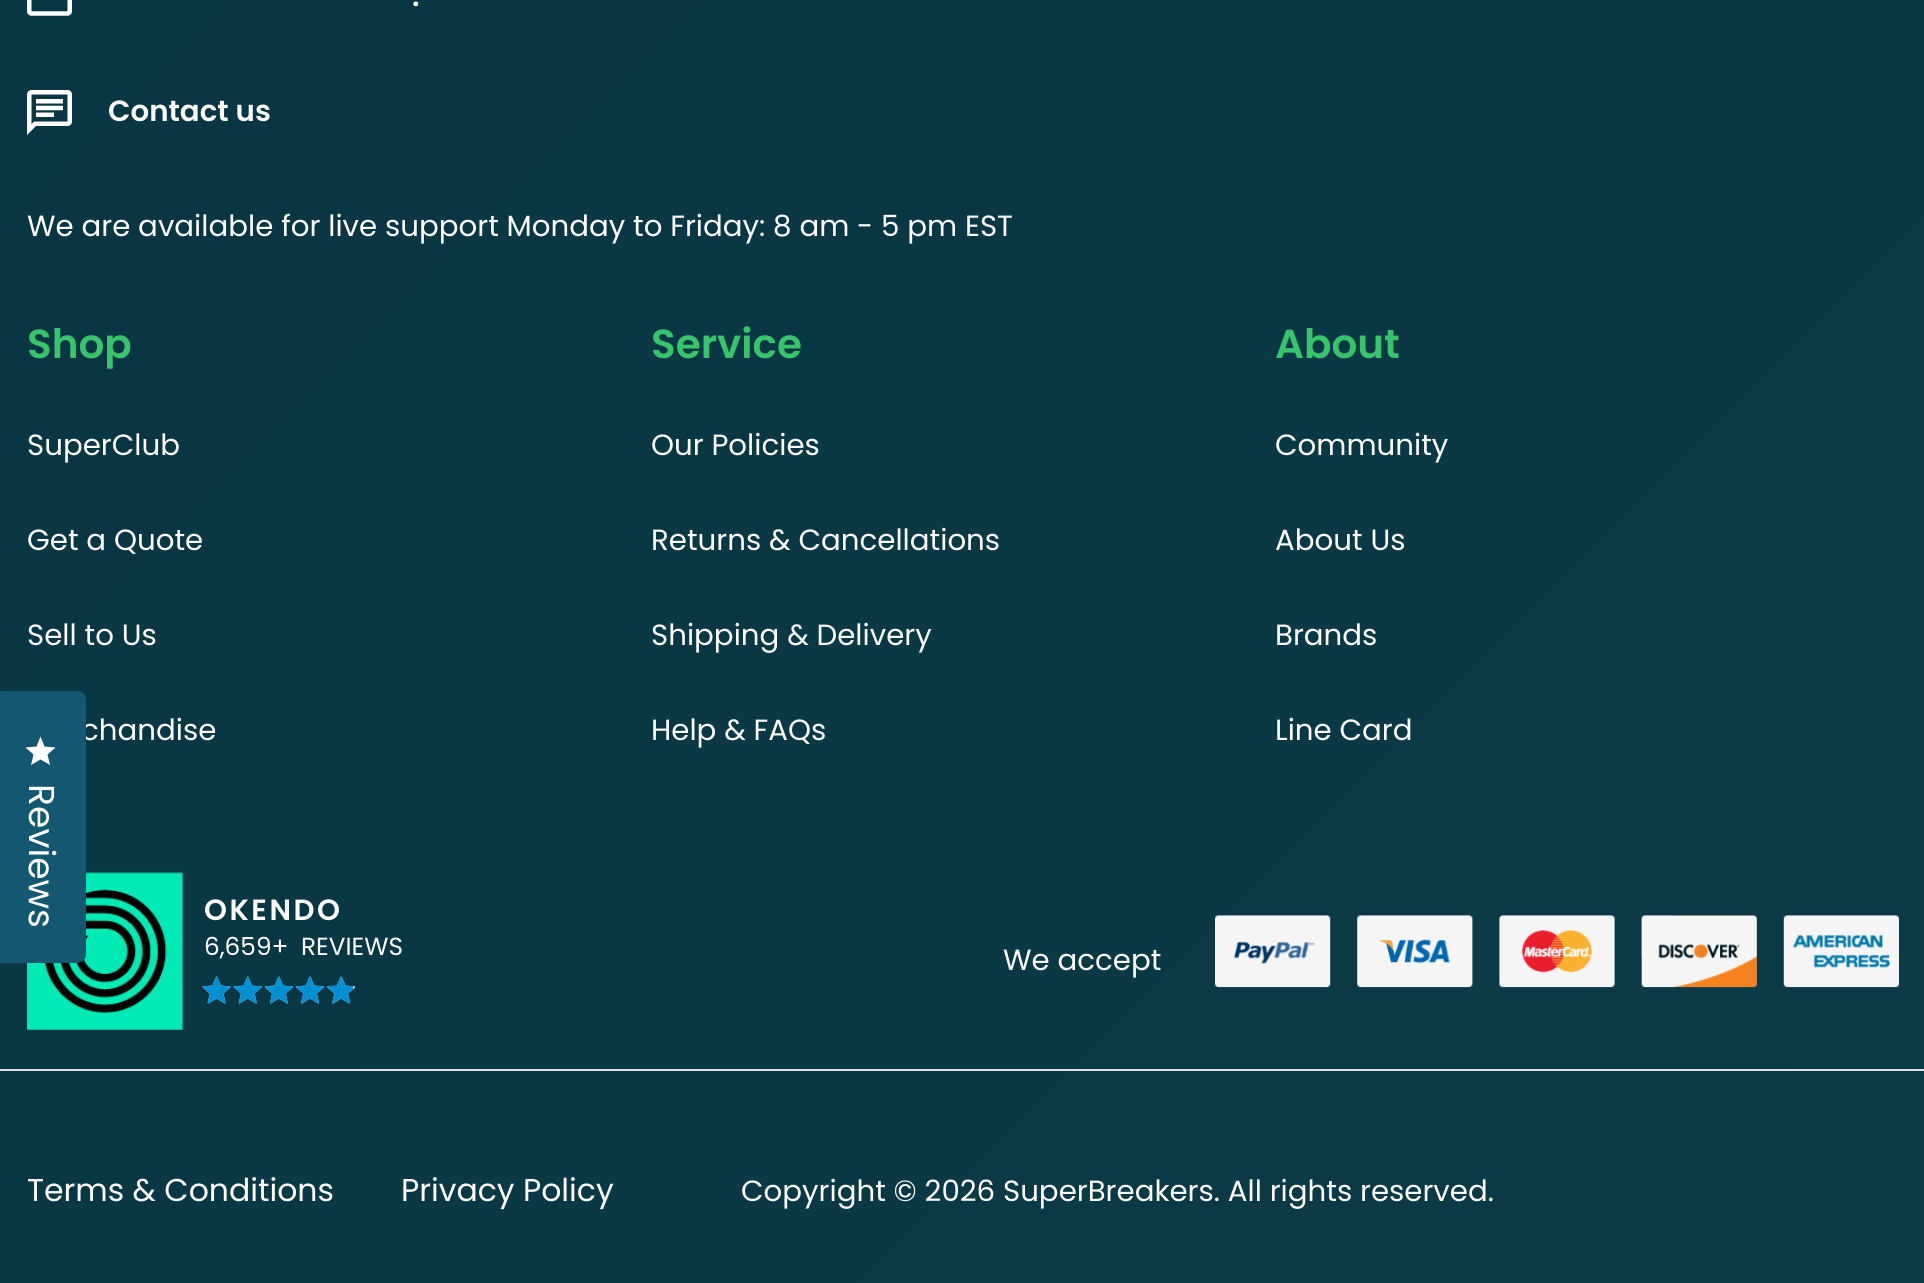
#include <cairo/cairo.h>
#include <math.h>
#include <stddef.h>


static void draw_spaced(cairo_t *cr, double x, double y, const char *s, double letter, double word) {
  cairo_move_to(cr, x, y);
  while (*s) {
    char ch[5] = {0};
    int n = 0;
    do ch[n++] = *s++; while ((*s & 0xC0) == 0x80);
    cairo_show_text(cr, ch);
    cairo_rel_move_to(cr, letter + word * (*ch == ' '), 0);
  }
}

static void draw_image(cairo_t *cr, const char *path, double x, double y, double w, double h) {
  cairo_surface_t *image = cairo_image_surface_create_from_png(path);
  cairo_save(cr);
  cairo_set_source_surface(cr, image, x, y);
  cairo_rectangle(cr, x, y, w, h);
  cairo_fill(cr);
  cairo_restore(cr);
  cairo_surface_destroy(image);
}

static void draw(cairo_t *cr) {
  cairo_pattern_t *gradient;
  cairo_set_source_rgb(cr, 1, 1, 1);
  cairo_paint(cr);
  gradient = cairo_pattern_create_linear(68, -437, 1858, 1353);
  cairo_pattern_add_color_stop_rgba(gradient, 0, 9 / 255.0, 53 / 255.0, 66 / 255.0, 1);
  cairo_pattern_add_color_stop_rgba(gradient, 1, 12 / 255.0, 58 / 255.0, 71 / 255.0, 1);
  cairo_set_source(cr, gradient);
  cairo_pattern_destroy(gradient);
  cairo_rectangle(cr, 0, 0, 1924, 1283);
  cairo_fill(cr);
  draw_image(cr, "images/1.png", 27, 0, 45, 16);
  draw_image(cr, "images/2.png", 27, 90, 45, 45);
  draw_image(cr, "images/3.png", 27, 872, 157, 158);
  draw_image(cr, "images/4.png", 202, 976, 154, 28);
  draw_image(cr, "images/5.png", 203, 977, 150, 27);
  draw_image(cr, "images/6.png", 1215, 915, 116, 73);
  draw_image(cr, "images/7.png", 1357, 915, 116, 73);
  draw_image(cr, "images/8.png", 1499, 915, 116, 73);
  draw_image(cr, "images/9.png", 1641, 915, 116, 73);
  draw_image(cr, "images/10.png", 1783, 915, 116, 73);
  cairo_set_source_rgb(cr, 221 / 255.0, 221 / 255.0, 221 / 255.0);
  cairo_rectangle(cr, 0, 1069, 1924, 2);
  cairo_fill(cr);
  cairo_select_font_face(cr, "Poppins SemiBold", CAIRO_FONT_SLANT_NORMAL, CAIRO_FONT_WEIGHT_NORMAL);
  cairo_set_font_size(cr, 29.25);
  cairo_set_source_rgb(cr, 1, 1, 1);
  cairo_move_to(cr, 412, 6);
  cairo_show_text(cr, ".");
  cairo_move_to(cr, 108, 121);
  cairo_show_text(cr, "Contact us");
  cairo_select_font_face(cr, "Poppins", CAIRO_FONT_SLANT_NORMAL, CAIRO_FONT_WEIGHT_NORMAL);
  cairo_move_to(cr, 27, 236);
  cairo_show_text(cr, "We are available for live support Monday to Friday: 8 am - 5 pm EST");
  cairo_select_font_face(cr, "Poppins SemiBold", CAIRO_FONT_SLANT_NORMAL, CAIRO_FONT_WEIGHT_NORMAL);
  cairo_set_font_size(cr, 40.5);
  cairo_set_source_rgb(cr, 55 / 255.0, 197 / 255.0, 107 / 255.0);
  cairo_move_to(cr, 27, 358);
  cairo_show_text(cr, "Shop");
  cairo_select_font_face(cr, "Poppins", CAIRO_FONT_SLANT_NORMAL, CAIRO_FONT_WEIGHT_NORMAL);
  cairo_set_font_size(cr, 29.25);
  cairo_set_source_rgb(cr, 1, 1, 1);
  cairo_move_to(cr, 27, 455);
  cairo_show_text(cr, "SuperClub");
  cairo_move_to(cr, 27, 550);
  cairo_show_text(cr, "Get a Quote");
  cairo_move_to(cr, 27, 645);
  cairo_show_text(cr, "Sell to Us");
  cairo_move_to(cr, 81, 740);
  cairo_show_text(cr, "chandise");
  cairo_select_font_face(cr, "Poppins SemiBold", CAIRO_FONT_SLANT_NORMAL, CAIRO_FONT_WEIGHT_NORMAL);
  cairo_set_font_size(cr, 40.5);
  cairo_set_source_rgb(cr, 55 / 255.0, 197 / 255.0, 107 / 255.0);
  cairo_move_to(cr, 651, 358);
  cairo_show_text(cr, "Service");
  cairo_select_font_face(cr, "Poppins", CAIRO_FONT_SLANT_NORMAL, CAIRO_FONT_WEIGHT_NORMAL);
  cairo_set_font_size(cr, 29.25);
  cairo_set_source_rgb(cr, 1, 1, 1);
  cairo_move_to(cr, 651, 455);
  cairo_show_text(cr, "Our Policies");
  cairo_move_to(cr, 651, 550);
  cairo_show_text(cr, "Returns & Cancellations");
  cairo_move_to(cr, 651, 645);
  cairo_show_text(cr, "Shipping & Delivery");
  cairo_move_to(cr, 651, 740);
  cairo_show_text(cr, "Help & FAQs");
  cairo_select_font_face(cr, "Poppins SemiBold", CAIRO_FONT_SLANT_NORMAL, CAIRO_FONT_WEIGHT_NORMAL);
  cairo_set_font_size(cr, 40.5);
  cairo_set_source_rgb(cr, 55 / 255.0, 197 / 255.0, 107 / 255.0);
  cairo_move_to(cr, 1275, 358);
  cairo_show_text(cr, "About");
  cairo_select_font_face(cr, "Poppins", CAIRO_FONT_SLANT_NORMAL, CAIRO_FONT_WEIGHT_NORMAL);
  cairo_set_font_size(cr, 29.25);
  cairo_set_source_rgb(cr, 1, 1, 1);
  cairo_move_to(cr, 1275, 455);
  cairo_show_text(cr, "Community");
  cairo_move_to(cr, 1275, 550);
  cairo_show_text(cr, "About Us");
  cairo_move_to(cr, 1275, 645);
  cairo_show_text(cr, "Brands");
  cairo_move_to(cr, 1275, 740);
  cairo_show_text(cr, "Line Card");
  cairo_select_font_face(cr, "Poppins SemiBold", CAIRO_FONT_SLANT_NORMAL, CAIRO_FONT_WEIGHT_NORMAL);
  draw_spaced(cr, 204, 920, "OKENDO", 2.5, 0);
  cairo_select_font_face(cr, "Poppins", CAIRO_FONT_SLANT_NORMAL, CAIRO_FONT_WEIGHT_NORMAL);
  cairo_set_font_size(cr, 24.75);
  cairo_move_to(cr, 204, 955);
  cairo_show_text(cr, "6,659+");
  cairo_move_to(cr, 301, 955);
  cairo_show_text(cr, "REVIEWS");
  cairo_set_font_size(cr, 29.25);
  cairo_move_to(cr, 1003, 970);
  cairo_show_text(cr, "We accept");
  cairo_set_font_size(cr, 31.5);
  cairo_move_to(cr, 27, 1201);
  cairo_show_text(cr, "Terms & Conditions");
  cairo_move_to(cr, 401, 1201);
  cairo_show_text(cr, "Privacy Policy");
  cairo_set_font_size(cr, 29.25);
  cairo_move_to(cr, 741, 1201);
  cairo_show_text(cr, "Copyright © 2026 SuperBreakers. All rights reserved.");
  cairo_set_source_rgb(cr, 19 / 255.0, 88 / 255.0, 112 / 255.0);
  cairo_new_path(cr);
  cairo_move_to(cr, -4, 691);
  cairo_line_to(cr, 77, 691);
  cairo_curve_to(cr, 82, 691, 86, 695, 86, 700);
  cairo_line_to(cr, 86, 954);
  cairo_curve_to(cr, 86, 959, 82, 963, 77, 963);
  cairo_line_to(cr, -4, 963);
  cairo_close_path(cr);
  cairo_fill(cr);
  cairo_set_source_rgb(cr, 1, 1, 1);
  cairo_new_path(cr);
  cairo_move_to(cr, 40.5, 759.5);
  cairo_line_to(cr, 50, 765);
  cairo_line_to(cr, 47.5, 754.5);
  cairo_line_to(cr, 55.5, 747.5);
  cairo_line_to(cr, 44.5, 746.5);
  cairo_line_to(cr, 40.5, 736.5);
  cairo_line_to(cr, 36.5, 746.5);
  cairo_line_to(cr, 25.5, 747.5);
  cairo_line_to(cr, 33.5, 754.5);
  cairo_line_to(cr, 31, 765);
  cairo_close_path(cr);
  cairo_fill(cr);
  cairo_set_font_size(cr, 36);
  cairo_save(cr);
  cairo_translate(cr, 29, 784);
  cairo_rotate(cr, 90.1 * M_PI / 180);
  cairo_move_to(cr, 0, 0);
  cairo_show_text(cr, "Reviews");
  cairo_restore(cr);
}

int main(void) {
  cairo_surface_t *surface = cairo_image_surface_create(CAIRO_FORMAT_RGB24, 1924, 1283);
  cairo_t *cr = cairo_create(surface);
  cairo_font_options_t *options = cairo_font_options_create();
  cairo_font_options_set_hint_metrics(options, CAIRO_HINT_METRICS_OFF);
  cairo_font_options_set_hint_style(options, CAIRO_HINT_STYLE_NONE);
  cairo_set_font_options(cr, options);
  cairo_set_miter_limit(cr, 4);
  draw(cr);
  cairo_surface_write_to_png(surface, "out.png");
  cairo_font_options_destroy(options);
  cairo_destroy(cr);
  cairo_surface_destroy(surface);
  return 0;
}
